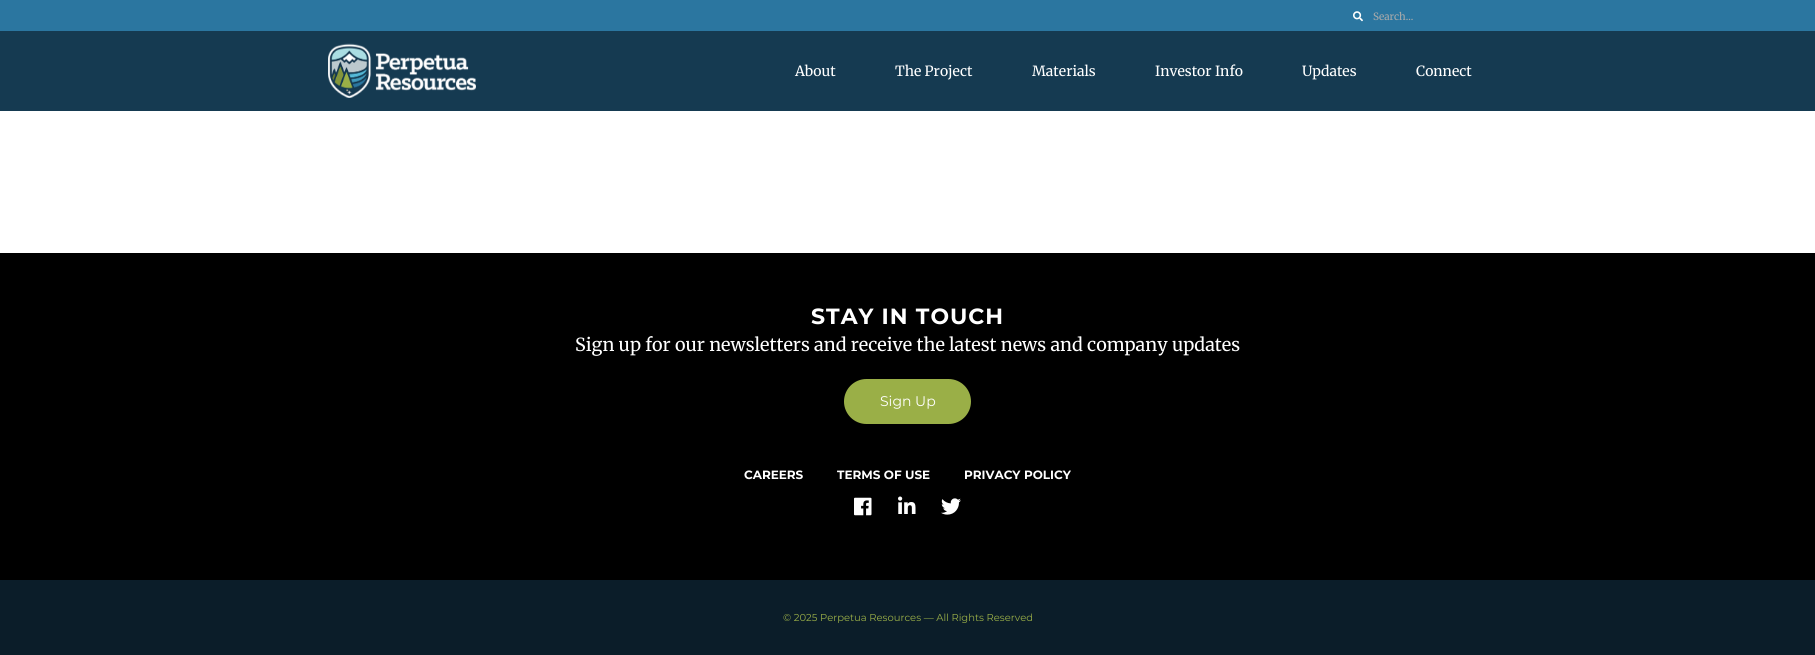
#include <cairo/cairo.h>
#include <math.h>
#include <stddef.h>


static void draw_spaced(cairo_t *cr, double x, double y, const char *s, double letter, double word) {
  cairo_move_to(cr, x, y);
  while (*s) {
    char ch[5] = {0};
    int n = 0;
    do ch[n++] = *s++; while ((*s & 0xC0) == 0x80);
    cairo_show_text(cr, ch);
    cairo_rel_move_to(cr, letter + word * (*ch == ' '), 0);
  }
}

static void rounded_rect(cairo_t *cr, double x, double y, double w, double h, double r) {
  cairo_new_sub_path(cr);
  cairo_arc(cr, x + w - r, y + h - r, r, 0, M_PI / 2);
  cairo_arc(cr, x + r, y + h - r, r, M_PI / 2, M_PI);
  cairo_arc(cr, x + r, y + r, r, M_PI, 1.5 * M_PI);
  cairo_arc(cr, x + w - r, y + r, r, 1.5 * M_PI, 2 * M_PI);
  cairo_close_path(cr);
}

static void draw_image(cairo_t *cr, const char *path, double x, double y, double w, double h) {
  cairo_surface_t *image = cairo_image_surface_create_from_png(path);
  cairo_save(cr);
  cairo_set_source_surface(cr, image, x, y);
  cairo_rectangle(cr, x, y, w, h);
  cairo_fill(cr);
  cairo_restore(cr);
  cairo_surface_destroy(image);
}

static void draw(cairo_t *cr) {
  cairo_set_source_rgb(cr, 1, 1, 1);
  cairo_paint(cr);
  cairo_set_source_rgb(cr, 43 / 255.0, 118 / 255.0, 160 / 255.0);
  cairo_rectangle(cr, 0, 0, 1815, 31);
  cairo_fill(cr);
  draw_image(cr, "images/1.png", 1353, 11, 10, 11);
  cairo_set_source_rgb(cr, 21 / 255.0, 58 / 255.0, 81 / 255.0);
  cairo_rectangle(cr, 0, 31, 1815, 80);
  cairo_fill(cr);
  draw_image(cr, "images/2.png", 328, 43, 148, 55);
  cairo_set_source_rgb(cr, 0, 0, 0);
  cairo_rectangle(cr, 0, 253, 1815, 327);
  cairo_fill(cr);
  cairo_set_source_rgb(cr, 154 / 255.0, 175 / 255.0, 71 / 255.0);
  rounded_rect(cr, 844, 379, 127, 45, 22.5);
  cairo_fill(cr);
  draw_image(cr, "images/3.png", 854, 497, 18, 19);
  draw_image(cr, "images/4.png", 898, 496, 18, 18);
  draw_image(cr, "images/5.png", 941, 498, 20, 17);
  cairo_set_source_rgb(cr, 11 / 255.0, 29 / 255.0, 41 / 255.0);
  cairo_rectangle(cr, 0, 580, 1815, 75);
  cairo_fill(cr);
  cairo_select_font_face(cr, "Merriweather", CAIRO_FONT_SLANT_NORMAL, CAIRO_FONT_WEIGHT_NORMAL);
  cairo_set_font_size(cr, 10);
  cairo_set_source_rgb(cr, 170 / 255.0, 170 / 255.0, 170 / 255.0);
  cairo_move_to(cr, 1373, 20);
  cairo_show_text(cr, "Search...");
  cairo_set_font_size(cr, 14);
  cairo_set_source_rgb(cr, 1, 1, 1);
  cairo_move_to(cr, 795, 76);
  cairo_show_text(cr, "About");
  cairo_move_to(cr, 895, 76);
  cairo_show_text(cr, "The Project");
  cairo_move_to(cr, 1032, 76);
  cairo_show_text(cr, "Materials");
  cairo_move_to(cr, 1155, 76);
  cairo_show_text(cr, "Investor Info");
  cairo_move_to(cr, 1302, 76);
  cairo_show_text(cr, "Updates");
  cairo_move_to(cr, 1416, 76);
  cairo_show_text(cr, "Connect");
  cairo_select_font_face(cr, "Montserrat", CAIRO_FONT_SLANT_NORMAL, CAIRO_FONT_WEIGHT_BOLD);
  cairo_set_font_size(cr, 22);
  draw_spaced(cr, 811, 324, "STAY IN TOUCH", 1, 0);
  cairo_select_font_face(cr, "Merriweather", CAIRO_FONT_SLANT_NORMAL, CAIRO_FONT_WEIGHT_NORMAL);
  cairo_set_font_size(cr, 18);
  cairo_move_to(cr, 575, 351);
  cairo_show_text(cr, "Sign up for our newsletters and receive the latest news and company updates");
  cairo_select_font_face(cr, "Montserrat", CAIRO_FONT_SLANT_NORMAL, CAIRO_FONT_WEIGHT_NORMAL);
  cairo_set_font_size(cr, 14);
  cairo_move_to(cr, 880, 406);
  cairo_show_text(cr, "Sign Up");
  cairo_select_font_face(cr, "Montserrat", CAIRO_FONT_SLANT_NORMAL, CAIRO_FONT_WEIGHT_BOLD);
  cairo_set_font_size(cr, 12);
  cairo_move_to(cr, 744, 479);
  cairo_show_text(cr, "CAREERS");
  cairo_move_to(cr, 837, 479);
  cairo_show_text(cr, "TERMS OF USE");
  cairo_move_to(cr, 964, 479);
  cairo_show_text(cr, "PRIVACY POLICY");
  cairo_select_font_face(cr, "Montserrat", CAIRO_FONT_SLANT_NORMAL, CAIRO_FONT_WEIGHT_NORMAL);
  cairo_set_font_size(cr, 10);
  cairo_set_source_rgb(cr, 154 / 255.0, 175 / 255.0, 71 / 255.0);
  cairo_move_to(cr, 783, 621);
  cairo_show_text(cr, "© 2025 Perpetua Resources — All Rights Reserved");
}

int main(void) {
  cairo_surface_t *surface = cairo_image_surface_create(CAIRO_FORMAT_RGB24, 1815, 655);
  cairo_t *cr = cairo_create(surface);
  cairo_font_options_t *options = cairo_font_options_create();
  cairo_font_options_set_hint_metrics(options, CAIRO_HINT_METRICS_OFF);
  cairo_font_options_set_hint_style(options, CAIRO_HINT_STYLE_NONE);
  cairo_set_font_options(cr, options);
  cairo_set_miter_limit(cr, 4);
  draw(cr);
  cairo_surface_write_to_png(surface, "out.png");
  cairo_font_options_destroy(options);
  cairo_destroy(cr);
  cairo_surface_destroy(surface);
  return 0;
}
